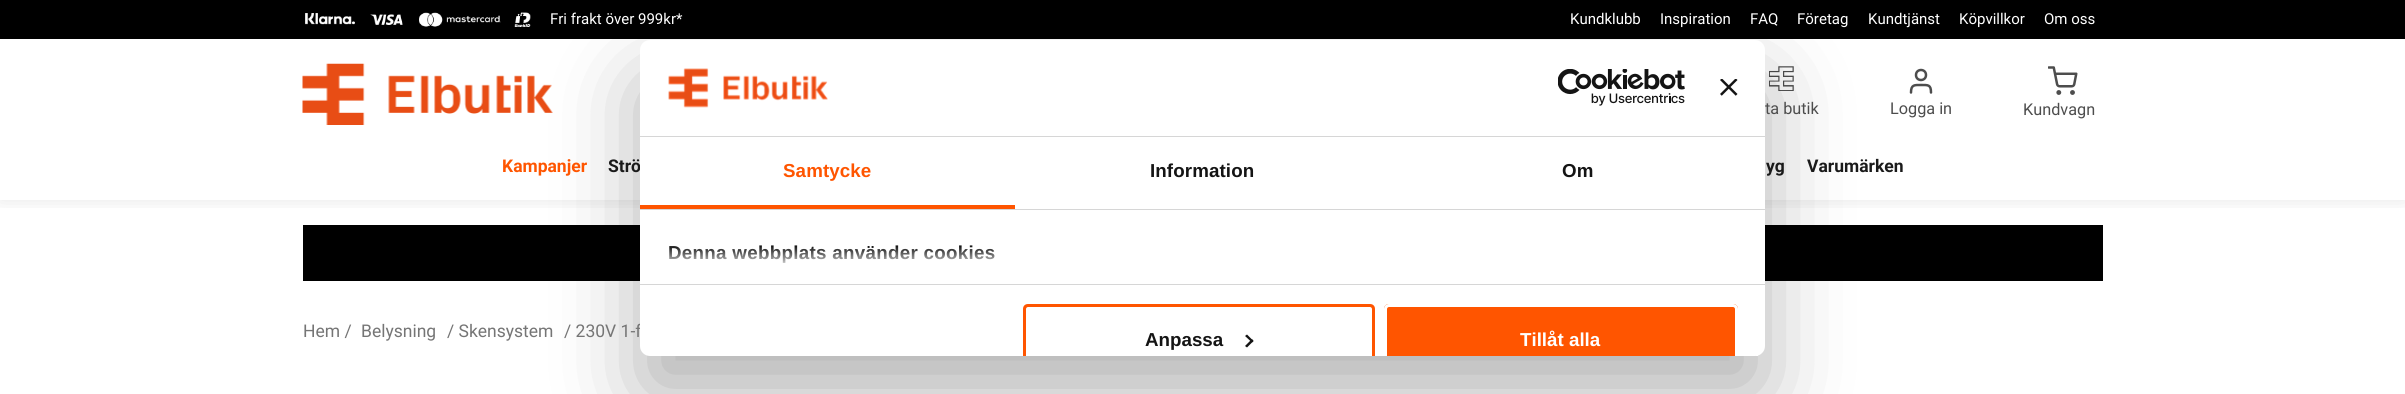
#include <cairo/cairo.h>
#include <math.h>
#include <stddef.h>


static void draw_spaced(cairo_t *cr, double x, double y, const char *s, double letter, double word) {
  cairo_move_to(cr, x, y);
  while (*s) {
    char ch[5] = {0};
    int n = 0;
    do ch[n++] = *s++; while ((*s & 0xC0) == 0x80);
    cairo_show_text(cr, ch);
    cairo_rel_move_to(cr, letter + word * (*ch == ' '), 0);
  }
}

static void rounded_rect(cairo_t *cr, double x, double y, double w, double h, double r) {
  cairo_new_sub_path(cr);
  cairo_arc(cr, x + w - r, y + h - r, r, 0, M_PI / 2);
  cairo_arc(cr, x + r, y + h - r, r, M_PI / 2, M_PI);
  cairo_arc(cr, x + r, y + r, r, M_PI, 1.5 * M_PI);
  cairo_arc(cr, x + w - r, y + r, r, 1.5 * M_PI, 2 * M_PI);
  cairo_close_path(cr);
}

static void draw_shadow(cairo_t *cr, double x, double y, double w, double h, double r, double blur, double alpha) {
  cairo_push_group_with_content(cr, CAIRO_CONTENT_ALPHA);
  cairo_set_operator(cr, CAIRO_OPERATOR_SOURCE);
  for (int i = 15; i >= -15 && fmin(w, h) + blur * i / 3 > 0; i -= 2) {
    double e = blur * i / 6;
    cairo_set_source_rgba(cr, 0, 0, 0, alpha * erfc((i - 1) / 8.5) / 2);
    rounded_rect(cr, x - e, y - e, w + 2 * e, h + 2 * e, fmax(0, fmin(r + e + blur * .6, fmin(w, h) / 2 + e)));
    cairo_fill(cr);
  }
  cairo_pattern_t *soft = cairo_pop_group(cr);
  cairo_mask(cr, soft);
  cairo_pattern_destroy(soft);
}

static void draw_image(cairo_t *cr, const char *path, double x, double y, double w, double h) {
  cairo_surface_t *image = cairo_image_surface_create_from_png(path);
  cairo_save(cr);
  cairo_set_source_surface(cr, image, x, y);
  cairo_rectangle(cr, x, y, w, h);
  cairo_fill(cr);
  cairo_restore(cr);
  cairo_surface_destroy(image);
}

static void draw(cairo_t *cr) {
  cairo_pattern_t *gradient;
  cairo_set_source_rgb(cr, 1, 1, 1);
  cairo_paint(cr);
  cairo_save(cr);
  cairo_rectangle(cr, 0, 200, 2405, 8);
  cairo_clip(cr);
  cairo_set_source_rgb(cr, 0, 0, 0);
  draw_shadow(cr, 0, 0, 2405, 200, 0, 9.5, 0.1);
  cairo_restore(cr);
  cairo_set_source_rgb(cr, 0, 0, 0);
  cairo_rectangle(cr, 0, 0, 2405, 39);
  cairo_fill(cr);
  draw_image(cr, "images/1.png", 305, 12, 226, 15);
  draw_image(cr, "images/2.png", 302, 63, 251, 62);
  draw_image(cr, "images/3.png", 1769, 66, 25, 25);
  cairo_new_path(cr);
  cairo_move_to(cr, 1931, 92.5);
  cairo_curve_to(cr, 1931, 84.5, 1928, 85, 1921, 85);
  cairo_curve_to(cr, 1914.5, 85, 1911, 84.5, 1911, 92.5);
  cairo_set_source_rgb(cr, 77 / 255.0, 77 / 255.0, 77 / 255.0);
  cairo_set_line_width(cr, 2.5);
  cairo_set_line_cap(cr, CAIRO_LINE_CAP_ROUND);
  cairo_set_line_join(cr, CAIRO_LINE_JOIN_ROUND);
  cairo_stroke(cr);
  cairo_arc(cr, 1921, 75, 5, 0, 2 * M_PI);
  cairo_set_line_cap(cr, CAIRO_LINE_CAP_BUTT);
  cairo_set_line_join(cr, CAIRO_LINE_JOIN_MITER);
  cairo_stroke(cr);
  draw_image(cr, "images/4.png", 2048, 66, 30, 29);
  cairo_set_source_rgb(cr, 0, 0, 0);
  cairo_rectangle(cr, 303, 225, 1800, 56);
  cairo_fill(cr);
  cairo_set_source_rgb(cr, 0, 0, 0);
  draw_shadow(cr, 640, 80, 1125, 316, 10, 42.5, 0.3);
  cairo_select_font_face(cr, "Roboto", CAIRO_FONT_SLANT_NORMAL, CAIRO_FONT_WEIGHT_NORMAL);
  cairo_set_font_size(cr, 15);
  cairo_set_source_rgb(cr, 1, 1, 1);
  cairo_move_to(cr, 550, 24);
  cairo_show_text(cr, "Fri frakt över 999kr*");
  cairo_move_to(cr, 1570, 24);
  cairo_show_text(cr, "Kundklubb");
  cairo_move_to(cr, 1660, 24);
  cairo_show_text(cr, "Inspiration");
  cairo_move_to(cr, 1750, 24);
  cairo_show_text(cr, "FAQ");
  cairo_move_to(cr, 1797, 24);
  cairo_show_text(cr, "Företag");
  cairo_move_to(cr, 1868, 24);
  cairo_show_text(cr, "Kundtjänst");
  cairo_move_to(cr, 1959, 24);
  cairo_show_text(cr, "Köpvillkor");
  cairo_move_to(cr, 2044, 24);
  cairo_show_text(cr, "Om oss");
  cairo_set_font_size(cr, 16.25);
  cairo_set_source_rgb(cr, 77 / 255.0, 77 / 255.0, 77 / 255.0);
  cairo_move_to(cr, 1765, 114);
  cairo_show_text(cr, "ta butik");
  cairo_move_to(cr, 1890, 114);
  cairo_show_text(cr, "Logga in");
  cairo_move_to(cr, 2023, 115);
  cairo_show_text(cr, "Kundvagn");
  cairo_select_font_face(cr, "Roboto", CAIRO_FONT_SLANT_NORMAL, CAIRO_FONT_WEIGHT_BOLD);
  cairo_set_font_size(cr, 17.5);
  cairo_set_source_rgb(cr, 1, 85 / 255.0, 0);
  cairo_move_to(cr, 502, 172);
  cairo_show_text(cr, "Kampanjer");
  cairo_set_source_rgb(cr, 26 / 255.0, 26 / 255.0, 26 / 255.0);
  cairo_move_to(cr, 608, 172);
  cairo_show_text(cr, "Strö");
  cairo_move_to(cr, 1766, 172);
  cairo_show_text(cr, "yg");
  cairo_move_to(cr, 1807, 172);
  cairo_show_text(cr, "Varumärken");
  cairo_select_font_face(cr, "Roboto", CAIRO_FONT_SLANT_NORMAL, CAIRO_FONT_WEIGHT_NORMAL);
  cairo_set_source_rgb(cr, 117 / 255.0, 117 / 255.0, 117 / 255.0);
  cairo_move_to(cr, 303, 337);
  cairo_show_text(cr, "Hem /");
  cairo_move_to(cr, 361, 337);
  cairo_show_text(cr, "Belysning");
  cairo_move_to(cr, 447, 337);
  cairo_show_text(cr, "/ Skensystem");
  cairo_move_to(cr, 564, 337);
  cairo_show_text(cr, "/ 230V 1-f");
  cairo_set_source_rgb(cr, 1, 1, 1);
  rounded_rect(cr, 640, 40, 1125, 316, 10);
  cairo_fill(cr);
  cairo_set_source_rgb(cr, 214 / 255.0, 214 / 255.0, 214 / 255.0);
  cairo_rectangle(cr, 640, 136, 1125, 1);
  cairo_fill(cr);
  draw_image(cr, "images/5.png", 668, 68, 160, 40);
  draw_image(cr, "images/6.png", 1558, 69, 127, 37);
  draw_image(cr, "images/7.png", 1720, 79, 18, 17);
  cairo_rectangle(cr, 640, 209, 1125, 1);
  cairo_fill(cr);
  cairo_set_source_rgb(cr, 1, 85 / 255.0, 0);
  cairo_rectangle(cr, 640, 205, 375, 4);
  cairo_fill(cr);
  cairo_select_font_face(cr, "Liberation Sans", CAIRO_FONT_SLANT_NORMAL, CAIRO_FONT_WEIGHT_BOLD);
  cairo_set_font_size(cr, 18.75);
  draw_spaced(cr, 783, 177, "Samtycke", 0.1, 0);
  cairo_set_source_rgb(cr, 20 / 255.0, 20 / 255.0, 20 / 255.0);
  draw_spaced(cr, 1150, 177, "Information", 0.1, 0);
  draw_spaced(cr, 1562, 177, "Om", 0.1, 0);
  cairo_set_source_rgb(cr, 214 / 255.0, 214 / 255.0, 214 / 255.0);
  cairo_rectangle(cr, 640, 284, 1125, 1);
  cairo_fill(cr);
  cairo_set_source_rgb(cr, 20 / 255.0, 20 / 255.0, 20 / 255.0);
  draw_spaced(cr, 668, 259, "Denna webbplats använder cookies", 0.3, 0);
  gradient = cairo_pattern_create_linear(1190, 283, 1190, 246);
  cairo_pattern_add_color_stop_rgba(gradient, 0, 1, 1, 1, 1);
  cairo_pattern_add_color_stop_rgba(gradient, 0.5, 1, 1, 1, 0.8);
  cairo_pattern_add_color_stop_rgba(gradient, 1, 1, 1, 1, 0);
  cairo_set_source(cr, gradient);
  cairo_pattern_destroy(gradient);
  cairo_rectangle(cr, 669, 246, 326, 17);
  cairo_fill(cr);
  cairo_set_source_rgb(cr, 1, 85 / 255.0, 0);
  cairo_new_path(cr);
  cairo_move_to(cr, 1028, 304);
  cairo_curve_to(cr, 1025, 304, 1023, 306, 1023, 309);
  cairo_line_to(cr, 1023, 356);
  cairo_line_to(cr, 1026, 356);
  cairo_line_to(cr, 1026, 309);
  cairo_curve_to(cr, 1026, 308, 1027, 307, 1028, 307);
  cairo_line_to(cr, 1370, 307);
  cairo_curve_to(cr, 1371, 307, 1372, 308, 1372, 309);
  cairo_line_to(cr, 1372, 356);
  cairo_line_to(cr, 1375, 356);
  cairo_line_to(cr, 1375, 309);
  cairo_curve_to(cr, 1375, 306, 1373, 304, 1370, 304);
  cairo_close_path(cr);
  cairo_fill(cr);
  cairo_set_source_rgb(cr, 20 / 255.0, 20 / 255.0, 20 / 255.0);
  cairo_move_to(cr, 1145, 346);
  cairo_show_text(cr, "Anpassa");
  cairo_new_path(cr);
  cairo_move_to(cr, 1247, 334.5);
  cairo_line_to(cr, 1253.5, 341);
  cairo_line_to(cr, 1252, 342.5);
  cairo_line_to(cr, 1245, 336);
  cairo_close_path(cr);
  cairo_fill(cr);
  cairo_new_path(cr);
  cairo_move_to(cr, 1252, 339);
  cairo_line_to(cr, 1253.5, 341);
  cairo_line_to(cr, 1247, 347.5);
  cairo_line_to(cr, 1245, 346);
  cairo_close_path(cr);
  cairo_fill(cr);
  cairo_set_source_rgb(cr, 1, 85 / 255.0, 0);
  cairo_new_path(cr);
  cairo_move_to(cr, 1389, 304);
  cairo_line_to(cr, 1733, 304);
  cairo_curve_to(cr, 1736, 304, 1738, 306, 1738, 309);
  cairo_line_to(cr, 1738, 356);
  cairo_line_to(cr, 1384, 356);
  cairo_line_to(cr, 1384, 309);
  cairo_curve_to(cr, 1384, 306, 1386, 304, 1389, 304);
  cairo_close_path(cr);
  cairo_fill(cr);
  cairo_set_source_rgb(cr, 1, 1, 1);
  cairo_new_path(cr);
  cairo_move_to(cr, 1389, 304);
  cairo_curve_to(cr, 1386, 304, 1384, 306, 1384, 309);
  cairo_line_to(cr, 1384, 356);
  cairo_line_to(cr, 1387, 356);
  cairo_line_to(cr, 1387, 309);
  cairo_curve_to(cr, 1387, 308, 1388, 307, 1389, 307);
  cairo_line_to(cr, 1733, 307);
  cairo_curve_to(cr, 1734, 307, 1735, 308, 1735, 309);
  cairo_line_to(cr, 1735, 356);
  cairo_line_to(cr, 1738, 356);
  cairo_line_to(cr, 1738, 309);
  cairo_curve_to(cr, 1738, 306, 1736, 304, 1733, 304);
  cairo_close_path(cr);
  cairo_fill(cr);
  cairo_move_to(cr, 1520, 346);
  cairo_show_text(cr, "Tillåt alla");
  cairo_rectangle(cr, 1756, 355, 2, 1);
  cairo_fill(cr);
}

int main(void) {
  cairo_surface_t *surface = cairo_image_surface_create(CAIRO_FORMAT_RGB24, 2405, 394);
  cairo_t *cr = cairo_create(surface);
  cairo_font_options_t *options = cairo_font_options_create();
  cairo_font_options_set_hint_metrics(options, CAIRO_HINT_METRICS_OFF);
  cairo_font_options_set_hint_style(options, CAIRO_HINT_STYLE_NONE);
  cairo_set_font_options(cr, options);
  cairo_set_miter_limit(cr, 4);
  draw(cr);
  cairo_surface_write_to_png(surface, "out.png");
  cairo_font_options_destroy(options);
  cairo_destroy(cr);
  cairo_surface_destroy(surface);
  return 0;
}
